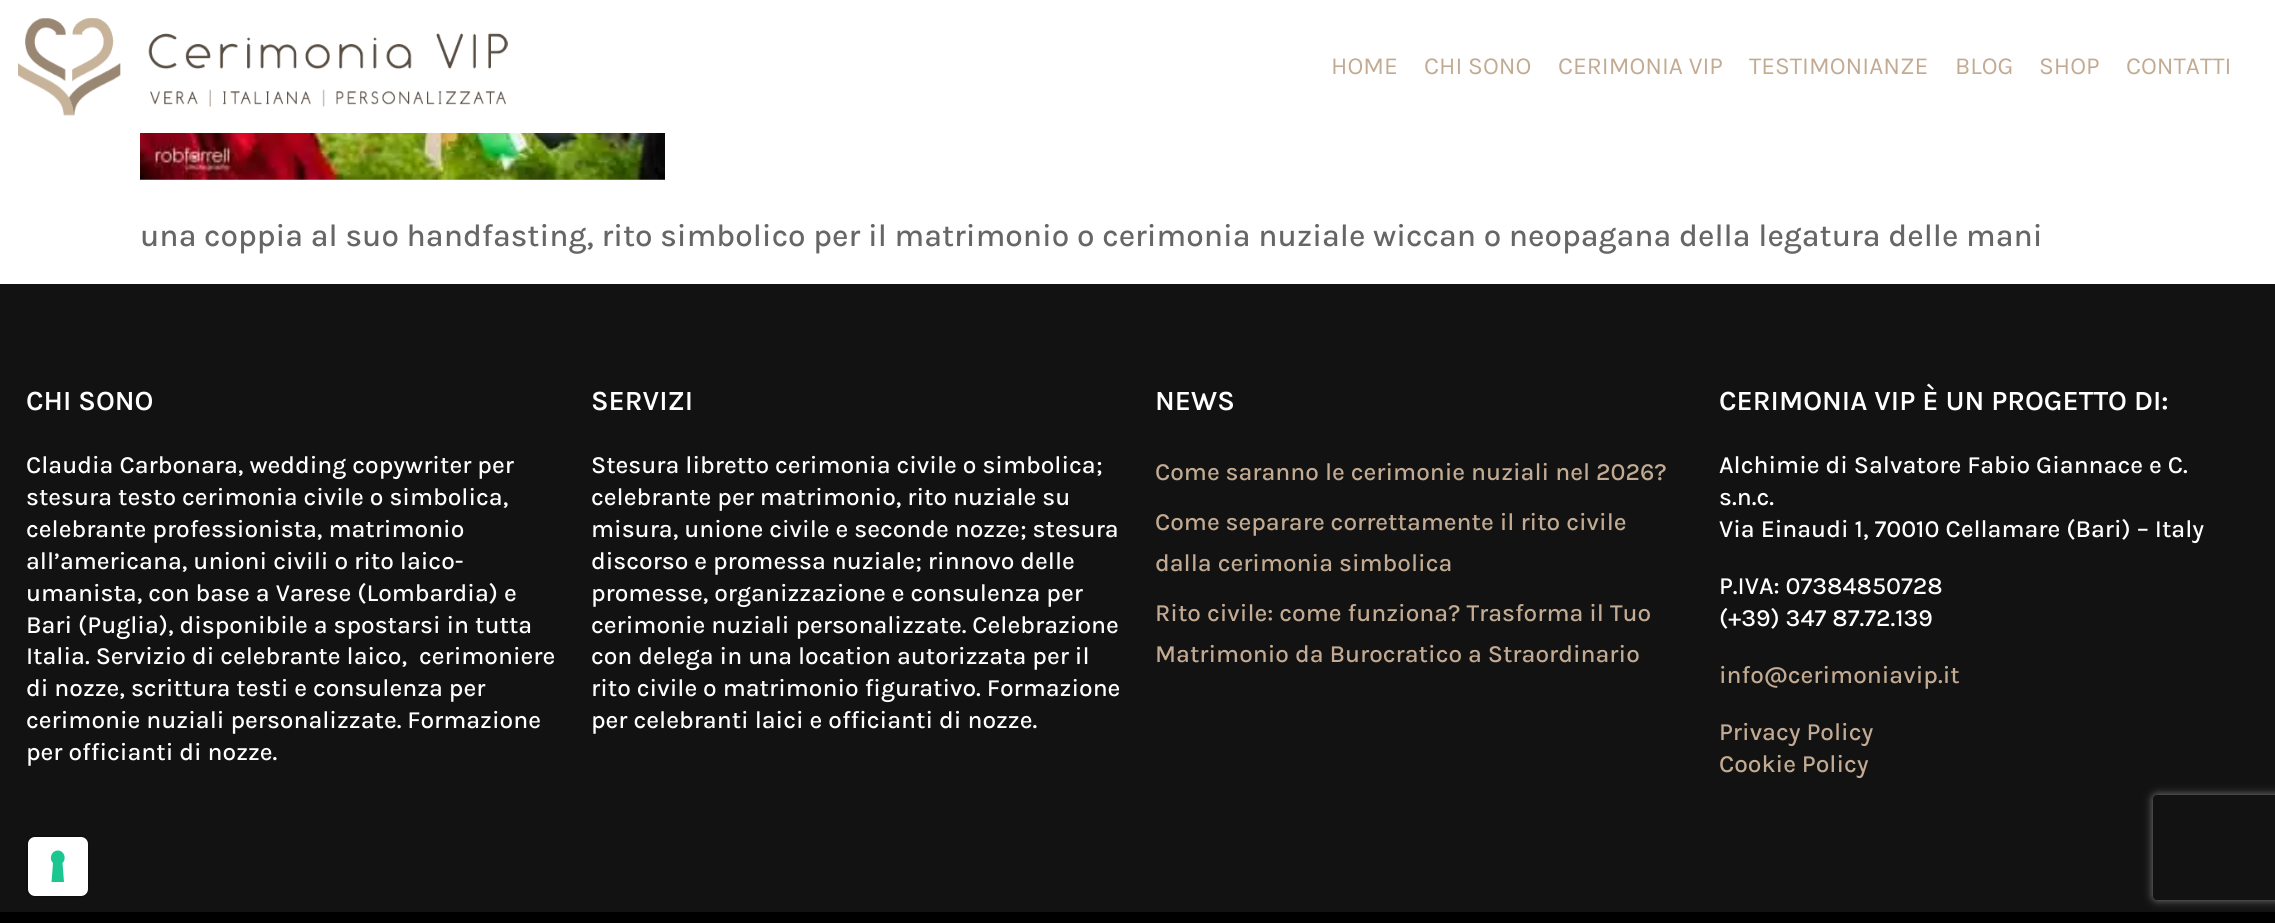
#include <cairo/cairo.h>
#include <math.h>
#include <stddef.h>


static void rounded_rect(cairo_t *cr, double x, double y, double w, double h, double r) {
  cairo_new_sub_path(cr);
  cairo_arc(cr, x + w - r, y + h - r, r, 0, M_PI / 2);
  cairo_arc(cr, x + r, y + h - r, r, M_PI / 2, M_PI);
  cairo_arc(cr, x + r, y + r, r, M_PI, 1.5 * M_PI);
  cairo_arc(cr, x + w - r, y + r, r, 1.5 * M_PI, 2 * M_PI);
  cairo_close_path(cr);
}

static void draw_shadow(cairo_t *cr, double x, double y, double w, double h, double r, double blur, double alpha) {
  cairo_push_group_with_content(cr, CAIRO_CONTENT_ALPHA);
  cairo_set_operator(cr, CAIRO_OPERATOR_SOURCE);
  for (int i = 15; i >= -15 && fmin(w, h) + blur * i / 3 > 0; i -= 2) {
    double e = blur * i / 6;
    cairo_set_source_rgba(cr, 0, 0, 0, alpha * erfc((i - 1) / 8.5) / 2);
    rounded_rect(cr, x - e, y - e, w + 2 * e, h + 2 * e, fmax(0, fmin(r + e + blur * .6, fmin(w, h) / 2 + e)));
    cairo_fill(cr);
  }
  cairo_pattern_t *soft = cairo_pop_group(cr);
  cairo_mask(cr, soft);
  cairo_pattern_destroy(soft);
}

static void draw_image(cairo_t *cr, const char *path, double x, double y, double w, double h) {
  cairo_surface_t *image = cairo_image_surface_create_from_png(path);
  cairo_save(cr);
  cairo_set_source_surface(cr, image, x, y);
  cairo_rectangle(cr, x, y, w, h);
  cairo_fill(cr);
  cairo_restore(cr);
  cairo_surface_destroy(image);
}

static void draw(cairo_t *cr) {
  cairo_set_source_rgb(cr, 1, 1, 1);
  cairo_paint(cr);
  draw_image(cr, "images/1.png", 18, 18, 490, 98);
  draw_image(cr, "images/2.png", 140, 133, 525, 47);
  cairo_set_source_rgb(cr, 18 / 255.0, 18 / 255.0, 18 / 255.0);
  cairo_rectangle(cr, 0, 284, 2275, 628);
  cairo_fill(cr);
  cairo_set_source_rgb(cr, 0, 0, 0);
  cairo_rectangle(cr, 0, 912, 2275, 11);
  cairo_fill(cr);
  rounded_rect(cr, 27, 836, 61, 61, 8);
  cairo_set_source_rgb(cr, 15 / 255.0, 15 / 255.0, 15 / 255.0);
  cairo_stroke(cr);
  cairo_set_source_rgb(cr, 1, 1, 1);
  rounded_rect(cr, 28, 837, 60, 59, 7);
  cairo_fill(cr);
  cairo_set_source_rgb(cr, 28 / 255.0, 198 / 255.0, 145 / 255.0);
  cairo_set_fill_rule(cr, CAIRO_FILL_RULE_EVEN_ODD);
  cairo_new_path(cr);
  cairo_move_to(cr, 58, 850.5);
  cairo_curve_to(cr, 64, 850.5, 67, 858.5, 62.5, 863);
  cairo_line_to(cr, 64, 882);
  cairo_line_to(cr, 51.5, 882);
  cairo_line_to(cr, 53, 863);
  cairo_curve_to(cr, 48.5, 858.5, 51.5, 850.5, 58, 850.5);
  cairo_close_path(cr);
  cairo_fill(cr);
  cairo_save(cr);
  cairo_new_path(cr);
  cairo_move_to(cr, 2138, 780);
  cairo_line_to(cr, 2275, 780);
  cairo_line_to(cr, 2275, 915);
  cairo_line_to(cr, 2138, 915);
  cairo_close_path(cr);
  cairo_move_to(cr, 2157, 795);
  cairo_line_to(cr, 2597, 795);
  cairo_curve_to(cr, 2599, 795, 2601, 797, 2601, 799);
  cairo_line_to(cr, 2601, 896);
  cairo_curve_to(cr, 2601, 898, 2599, 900, 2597, 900);
  cairo_line_to(cr, 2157, 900);
  cairo_curve_to(cr, 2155, 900, 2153, 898, 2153, 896);
  cairo_line_to(cr, 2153, 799);
  cairo_curve_to(cr, 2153, 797, 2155, 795, 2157, 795);
  cairo_close_path(cr);
  cairo_clip(cr);
  cairo_set_source_rgb(cr, 128 / 255.0, 128 / 255.0, 128 / 255.0);
  draw_shadow(cr, 2153, 795, 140, 105, 4, 4.5, 1);
  cairo_restore(cr);
  cairo_select_font_face(cr, "Karla", CAIRO_FONT_SLANT_NORMAL, CAIRO_FONT_WEIGHT_NORMAL);
  cairo_set_font_size(cr, 24.5);
  cairo_set_source_rgb(cr, 194 / 255.0, 171 / 255.0, 146 / 255.0);
  cairo_move_to(cr, 1331, 74);
  cairo_show_text(cr, "HOME");
  cairo_move_to(cr, 1424, 74);
  cairo_show_text(cr, "CHI SONO");
  cairo_move_to(cr, 1558, 74);
  cairo_show_text(cr, "CERIMONIA VIP");
  cairo_move_to(cr, 1749, 74);
  cairo_show_text(cr, "TESTIMONIANZE");
  cairo_move_to(cr, 1955, 74);
  cairo_show_text(cr, "BLOG");
  cairo_move_to(cr, 2039, 74);
  cairo_show_text(cr, "SHOP");
  cairo_move_to(cr, 2126, 74);
  cairo_show_text(cr, "CONTATTI");
  cairo_select_font_face(cr, "Karla Medium", CAIRO_FONT_SLANT_NORMAL, CAIRO_FONT_WEIGHT_NORMAL);
  cairo_set_font_size(cr, 31.5);
  cairo_set_source_rgb(cr, 102 / 255.0, 102 / 255.0, 102 / 255.0);
  cairo_move_to(cr, 140, 246);
  cairo_show_text(cr, "una coppia al suo handfasting, rito simbolico per il matrimonio o cerimonia nuziale wiccan o neopagana della legatura delle mani");
  cairo_select_font_face(cr, "Karla SemiBold", CAIRO_FONT_SLANT_NORMAL, CAIRO_FONT_WEIGHT_NORMAL);
  cairo_set_font_size(cr, 28);
  cairo_set_source_rgb(cr, 1, 1, 1);
  cairo_move_to(cr, 26, 410);
  cairo_show_text(cr, "CHI SONO");
  cairo_select_font_face(cr, "Karla Medium", CAIRO_FONT_SLANT_NORMAL, CAIRO_FONT_WEIGHT_NORMAL);
  cairo_set_font_size(cr, 24.5);
  cairo_move_to(cr, 26, 473);
  cairo_show_text(cr, "Claudia Carbonara, wedding copywriter per");
  cairo_move_to(cr, 26, 505);
  cairo_show_text(cr, "stesura testo cerimonia civile o simbolica,");
  cairo_move_to(cr, 26, 537);
  cairo_show_text(cr, "celebrante professionista, matrimonio");
  cairo_move_to(cr, 26, 569);
  cairo_show_text(cr, "all’americana, unioni civili o rito laico-");
  cairo_move_to(cr, 26, 601);
  cairo_show_text(cr, "umanista, con base a Varese (Lombardia) e");
  cairo_move_to(cr, 26, 633);
  cairo_show_text(cr, "Bari (Puglia), disponibile a spostarsi in tutta");
  cairo_move_to(cr, 26, 664);
  cairo_show_text(cr, "Italia. Servizio di celebrante laico,  cerimoniere");
  cairo_move_to(cr, 26, 696);
  cairo_show_text(cr, "di nozze, scrittura testi e consulenza per");
  cairo_move_to(cr, 26, 728);
  cairo_show_text(cr, "cerimonie nuziali personalizzate. Formazione");
  cairo_move_to(cr, 26, 760);
  cairo_show_text(cr, "per officianti di nozze.");
  cairo_select_font_face(cr, "Karla SemiBold", CAIRO_FONT_SLANT_NORMAL, CAIRO_FONT_WEIGHT_NORMAL);
  cairo_set_font_size(cr, 28);
  cairo_move_to(cr, 591, 410);
  cairo_show_text(cr, "SERVIZI");
  cairo_select_font_face(cr, "Karla Medium", CAIRO_FONT_SLANT_NORMAL, CAIRO_FONT_WEIGHT_NORMAL);
  cairo_set_font_size(cr, 24.5);
  cairo_move_to(cr, 591, 473);
  cairo_show_text(cr, "Stesura libretto cerimonia civile o simbolica;");
  cairo_move_to(cr, 591, 505);
  cairo_show_text(cr, "celebrante per matrimonio, rito nuziale su");
  cairo_move_to(cr, 591, 537);
  cairo_show_text(cr, "misura, unione civile e seconde nozze; stesura");
  cairo_move_to(cr, 591, 569);
  cairo_show_text(cr, "discorso e promessa nuziale; rinnovo delle");
  cairo_move_to(cr, 591, 601);
  cairo_show_text(cr, "promesse, organizzazione e consulenza per");
  cairo_move_to(cr, 591, 633);
  cairo_show_text(cr, "cerimonie nuziali personalizzate. Celebrazione");
  cairo_move_to(cr, 591, 664);
  cairo_show_text(cr, "con delega in una location autorizzata per il");
  cairo_move_to(cr, 591, 696);
  cairo_show_text(cr, "rito civile o matrimonio figurativo. Formazione");
  cairo_move_to(cr, 591, 728);
  cairo_show_text(cr, "per celebranti laici e officianti di nozze.");
  cairo_select_font_face(cr, "Karla SemiBold", CAIRO_FONT_SLANT_NORMAL, CAIRO_FONT_WEIGHT_NORMAL);
  cairo_set_font_size(cr, 28);
  cairo_move_to(cr, 1155, 410);
  cairo_show_text(cr, "NEWS");
  cairo_select_font_face(cr, "Karla Medium", CAIRO_FONT_SLANT_NORMAL, CAIRO_FONT_WEIGHT_NORMAL);
  cairo_set_font_size(cr, 24.5);
  cairo_set_source_rgb(cr, 194 / 255.0, 171 / 255.0, 146 / 255.0);
  cairo_move_to(cr, 1155, 480);
  cairo_show_text(cr, "Come saranno le cerimonie nuziali nel 2026?");
  cairo_move_to(cr, 1155, 530);
  cairo_show_text(cr, "Come separare correttamente il rito civile");
  cairo_move_to(cr, 1155, 571);
  cairo_show_text(cr, "dalla cerimonia simbolica");
  cairo_move_to(cr, 1155, 621);
  cairo_show_text(cr, "Rito civile: come funziona? Trasforma il Tuo");
  cairo_move_to(cr, 1155, 662);
  cairo_show_text(cr, "Matrimonio da Burocratico a Straordinario");
  cairo_select_font_face(cr, "Karla SemiBold", CAIRO_FONT_SLANT_NORMAL, CAIRO_FONT_WEIGHT_NORMAL);
  cairo_set_font_size(cr, 28);
  cairo_set_source_rgb(cr, 1, 1, 1);
  cairo_move_to(cr, 1719, 410);
  cairo_show_text(cr, "CERIMONIA VIP È UN PROGETTO DI:");
  cairo_select_font_face(cr, "Karla Medium", CAIRO_FONT_SLANT_NORMAL, CAIRO_FONT_WEIGHT_NORMAL);
  cairo_set_font_size(cr, 24.5);
  cairo_move_to(cr, 1719, 473);
  cairo_show_text(cr, "Alchimie di Salvatore Fabio Giannace e C.");
  cairo_move_to(cr, 1719, 505);
  cairo_show_text(cr, "s.n.c.");
  cairo_move_to(cr, 1719, 537);
  cairo_show_text(cr, "Via Einaudi 1, 70010 Cellamare (Bari) – Italy");
  cairo_move_to(cr, 1719, 594);
  cairo_show_text(cr, "P.IVA: 07384850728");
  cairo_move_to(cr, 1719, 626);
  cairo_show_text(cr, "(+39) 347 87.72.139");
  cairo_set_source_rgb(cr, 194 / 255.0, 171 / 255.0, 146 / 255.0);
  cairo_move_to(cr, 1719, 683);
  cairo_show_text(cr, "info@cerimoniavip.it");
  cairo_move_to(cr, 1719, 740);
  cairo_show_text(cr, "Privacy Policy");
  cairo_move_to(cr, 1719, 772);
  cairo_show_text(cr, "Cookie Policy");
}

int main(void) {
  cairo_surface_t *surface = cairo_image_surface_create(CAIRO_FORMAT_RGB24, 2275, 923);
  cairo_t *cr = cairo_create(surface);
  cairo_font_options_t *options = cairo_font_options_create();
  cairo_font_options_set_hint_metrics(options, CAIRO_HINT_METRICS_OFF);
  cairo_font_options_set_hint_style(options, CAIRO_HINT_STYLE_NONE);
  cairo_set_font_options(cr, options);
  cairo_set_miter_limit(cr, 4);
  draw(cr);
  cairo_surface_write_to_png(surface, "out.png");
  cairo_font_options_destroy(options);
  cairo_destroy(cr);
  cairo_surface_destroy(surface);
  return 0;
}
